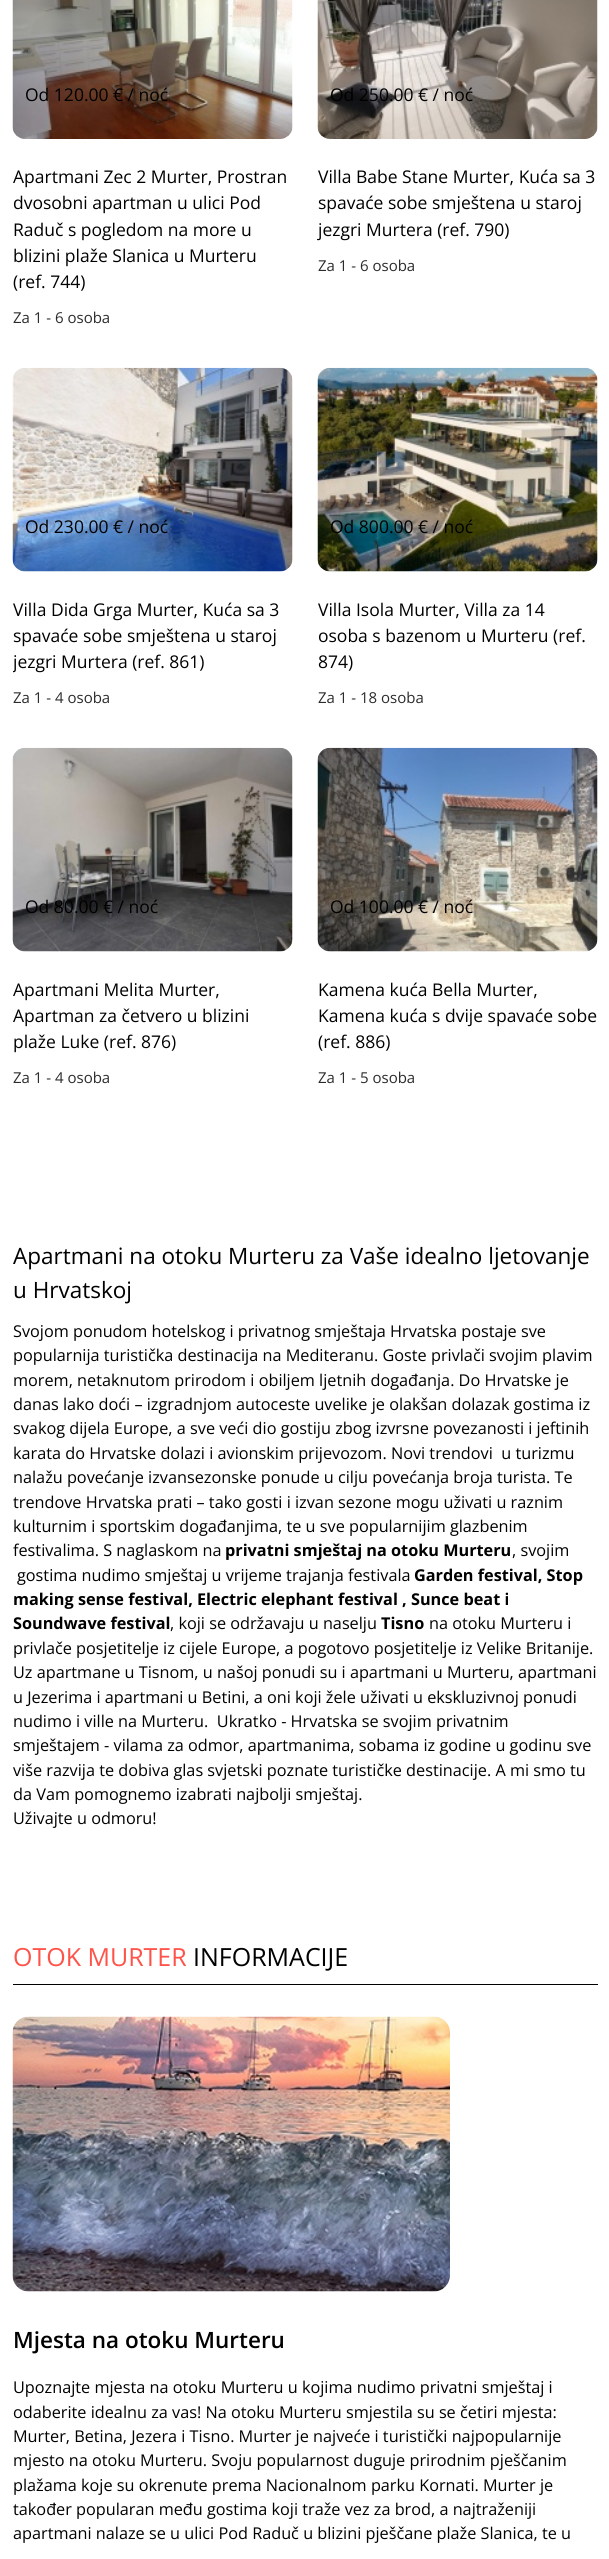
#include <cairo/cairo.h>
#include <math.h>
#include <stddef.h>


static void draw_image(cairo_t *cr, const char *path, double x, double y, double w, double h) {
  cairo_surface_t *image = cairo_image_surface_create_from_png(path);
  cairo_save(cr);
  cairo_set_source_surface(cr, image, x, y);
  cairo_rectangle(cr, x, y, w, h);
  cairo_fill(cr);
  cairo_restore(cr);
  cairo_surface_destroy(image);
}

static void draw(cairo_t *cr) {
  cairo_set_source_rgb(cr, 1, 1, 1);
  cairo_paint(cr);
  draw_image(cr, "images/1.png", 12, 0, 281, 139);
  draw_image(cr, "images/2.png", 317, 0, 281, 139);
  draw_image(cr, "images/3.png", 12, 367, 281, 205);
  draw_image(cr, "images/4.png", 317, 367, 281, 205);
  draw_image(cr, "images/5.png", 12, 747, 281, 205);
  draw_image(cr, "images/6.png", 317, 747, 281, 205);
  cairo_set_source_rgb(cr, 0, 0, 0);
  cairo_rectangle(cr, 13, 1984, 585, 1);
  cairo_fill(cr);
  draw_image(cr, "images/7.png", 12, 2016, 438, 276);
  cairo_select_font_face(cr, "Open Sans", CAIRO_FONT_SLANT_NORMAL, CAIRO_FONT_WEIGHT_NORMAL);
  cairo_set_font_size(cr, 17.5);
  cairo_move_to(cr, 25, 101);
  cairo_show_text(cr, "Od 120.00 € / noć");
  cairo_move_to(cr, 13, 183);
  cairo_show_text(cr, "Apartmani Zec 2 Murter, Prostran");
  cairo_move_to(cr, 13, 209);
  cairo_show_text(cr, "dvosobni apartman u ulici Pod");
  cairo_move_to(cr, 13, 236);
  cairo_show_text(cr, "Raduč s pogledom na more u");
  cairo_move_to(cr, 13, 262);
  cairo_show_text(cr, "blizini plaže Slanica u Murteru");
  cairo_move_to(cr, 13, 288);
  cairo_show_text(cr, "(ref. 744)");
  cairo_set_font_size(cr, 15);
  cairo_set_source_rgb(cr, 43 / 255.0, 43 / 255.0, 43 / 255.0);
  cairo_move_to(cr, 13, 323);
  cairo_show_text(cr, "Za 1 - 6 osoba");
  cairo_set_font_size(cr, 17.5);
  cairo_set_source_rgb(cr, 0, 0, 0);
  cairo_move_to(cr, 330, 101);
  cairo_show_text(cr, "Od 250.00 € / noć");
  cairo_move_to(cr, 318, 183);
  cairo_show_text(cr, "Villa Babe Stane Murter, Kuća sa 3");
  cairo_move_to(cr, 318, 209);
  cairo_show_text(cr, "spavaće sobe smještena u staroj");
  cairo_move_to(cr, 318, 236);
  cairo_show_text(cr, "jezgri Murtera (ref. 790)");
  cairo_set_font_size(cr, 15);
  cairo_set_source_rgb(cr, 43 / 255.0, 43 / 255.0, 43 / 255.0);
  cairo_move_to(cr, 318, 271);
  cairo_show_text(cr, "Za 1 - 6 osoba");
  cairo_set_font_size(cr, 17.5);
  cairo_set_source_rgb(cr, 0, 0, 0);
  cairo_move_to(cr, 25, 533);
  cairo_show_text(cr, "Od 230.00 € / noć");
  cairo_move_to(cr, 13, 616);
  cairo_show_text(cr, "Villa Dida Grga Murter, Kuća sa 3");
  cairo_move_to(cr, 13, 642);
  cairo_show_text(cr, "spavaće sobe smještena u staroj");
  cairo_save(cr);
  cairo_rectangle(cr, 13, 0, 585, 1153);
  cairo_clip(cr);
  cairo_move_to(cr, 13, 668);
  cairo_show_text(cr, "jezgri Murtera (ref. 861)");
  cairo_restore(cr);
  cairo_set_font_size(cr, 15);
  cairo_set_source_rgb(cr, 43 / 255.0, 43 / 255.0, 43 / 255.0);
  cairo_move_to(cr, 13, 703);
  cairo_show_text(cr, "Za 1 - 4 osoba");
  cairo_set_font_size(cr, 17.5);
  cairo_set_source_rgb(cr, 0, 0, 0);
  cairo_move_to(cr, 330, 533);
  cairo_show_text(cr, "Od 800.00 € / noć");
  cairo_move_to(cr, 318, 616);
  cairo_show_text(cr, "Villa Isola Murter, Villa za 14");
  cairo_move_to(cr, 318, 642);
  cairo_show_text(cr, "osoba s bazenom u Murteru (ref.");
  cairo_move_to(cr, 318, 668);
  cairo_show_text(cr, "874)");
  cairo_set_font_size(cr, 15);
  cairo_set_source_rgb(cr, 43 / 255.0, 43 / 255.0, 43 / 255.0);
  cairo_move_to(cr, 318, 703);
  cairo_show_text(cr, "Za 1 - 18 osoba");
  cairo_set_font_size(cr, 17.5);
  cairo_set_source_rgb(cr, 0, 0, 0);
  cairo_move_to(cr, 25, 913);
  cairo_show_text(cr, "Od 80.00 € / noć");
  cairo_move_to(cr, 13, 996);
  cairo_show_text(cr, "Apartmani Melita Murter,");
  cairo_move_to(cr, 13, 1022);
  cairo_show_text(cr, "Apartman za četvero u blizini");
  cairo_move_to(cr, 13, 1048);
  cairo_show_text(cr, "plaže Luke (ref. 876)");
  cairo_set_font_size(cr, 15);
  cairo_set_source_rgb(cr, 43 / 255.0, 43 / 255.0, 43 / 255.0);
  cairo_move_to(cr, 13, 1083);
  cairo_show_text(cr, "Za 1 - 4 osoba");
  cairo_set_font_size(cr, 17.5);
  cairo_set_source_rgb(cr, 0, 0, 0);
  cairo_move_to(cr, 330, 913);
  cairo_show_text(cr, "Od 100.00 € / noć");
  cairo_move_to(cr, 318, 996);
  cairo_show_text(cr, "Kamena kuća Bella Murter,");
  cairo_move_to(cr, 318, 1022);
  cairo_show_text(cr, "Kamena kuća s dvije spavaće sobe");
  cairo_move_to(cr, 318, 1048);
  cairo_show_text(cr, "(ref. 886)");
  cairo_set_font_size(cr, 15);
  cairo_set_source_rgb(cr, 43 / 255.0, 43 / 255.0, 43 / 255.0);
  cairo_move_to(cr, 318, 1083);
  cairo_show_text(cr, "Za 1 - 5 osoba");
  cairo_set_font_size(cr, 22.5);
  cairo_set_source_rgb(cr, 0, 0, 0);
  cairo_move_to(cr, 13, 1264);
  cairo_show_text(cr, "Apartmani na otoku Murteru za Vaše idealno ljetovanje");
  cairo_move_to(cr, 13, 1298);
  cairo_show_text(cr, "u Hrvatskoj");
  cairo_set_font_size(cr, 16.25);
  cairo_move_to(cr, 13, 1337);
  cairo_show_text(cr, "Svojom ponudom hotelskog i privatnog smještaja Hrvatska postaje sve");
  cairo_move_to(cr, 13, 1361);
  cairo_show_text(cr, "popularnija turistička destinacija na Mediteranu. Goste privlači svojim plavim");
  cairo_move_to(cr, 13, 1386);
  cairo_show_text(cr, "morem, netaknutom prirodom i obiljem ljetnih događanja. Do Hrvatske je");
  cairo_move_to(cr, 13, 1410);
  cairo_show_text(cr, "danas lako doći – izgradnjom autoceste uvelike je olakšan dolazak gostima iz");
  cairo_move_to(cr, 13, 1434);
  cairo_show_text(cr, "svakog dijela Europe, a sve veći dio gostiju zbog izvrsne povezanosti i jeftinih");
  cairo_move_to(cr, 13, 1459);
  cairo_show_text(cr, "karata do Hrvatske dolazi i avionskim prijevozom. Novi trendovi  u turizmu");
  cairo_move_to(cr, 13, 1483);
  cairo_show_text(cr, "nalažu povećanje izvansezonske ponude u cilju povećanja broja turista. Te");
  cairo_move_to(cr, 13, 1508);
  cairo_show_text(cr, "trendove Hrvatska prati – tako gosti i izvan sezone mogu uživati u raznim");
  cairo_move_to(cr, 13, 1532);
  cairo_show_text(cr, "kulturnim i sportskim događanjima, te u sve popularnijim glazbenim");
  cairo_move_to(cr, 13, 1556);
  cairo_show_text(cr, "festivalima. S naglaskom na");
  cairo_select_font_face(cr, "Open Sans", CAIRO_FONT_SLANT_NORMAL, CAIRO_FONT_WEIGHT_BOLD);
  cairo_move_to(cr, 225, 1556);
  cairo_show_text(cr, "privatni smještaj na otoku Murteru");
  cairo_select_font_face(cr, "Open Sans", CAIRO_FONT_SLANT_NORMAL, CAIRO_FONT_WEIGHT_NORMAL);
  cairo_move_to(cr, 512, 1556);
  cairo_show_text(cr, ", svojim");
  cairo_move_to(cr, 17, 1581);
  cairo_show_text(cr, "gostima nudimo smještaj u vrijeme trajanja festivala");
  cairo_select_font_face(cr, "Open Sans", CAIRO_FONT_SLANT_NORMAL, CAIRO_FONT_WEIGHT_BOLD);
  cairo_move_to(cr, 414, 1581);
  cairo_show_text(cr, "Garden festival, Stop");
  cairo_move_to(cr, 13, 1605);
  cairo_show_text(cr, "making sense festival, Electric elephant festival , Sunce beat i");
  cairo_move_to(cr, 13, 1629);
  cairo_show_text(cr, "Soundwave festival");
  cairo_select_font_face(cr, "Open Sans", CAIRO_FONT_SLANT_NORMAL, CAIRO_FONT_WEIGHT_NORMAL);
  cairo_move_to(cr, 170, 1629);
  cairo_show_text(cr, ", koji se održavaju u naselju");
  cairo_select_font_face(cr, "Open Sans", CAIRO_FONT_SLANT_NORMAL, CAIRO_FONT_WEIGHT_BOLD);
  cairo_move_to(cr, 381, 1629);
  cairo_show_text(cr, "Tisno");
  cairo_select_font_face(cr, "Open Sans", CAIRO_FONT_SLANT_NORMAL, CAIRO_FONT_WEIGHT_NORMAL);
  cairo_move_to(cr, 429, 1629);
  cairo_show_text(cr, "na otoku Murteru i");
  cairo_move_to(cr, 13, 1654);
  cairo_show_text(cr, "privlače posjetitelje iz cijele Europe, a pogotovo posjetitelje iz Velike Britanije.");
  cairo_move_to(cr, 13, 1678);
  cairo_show_text(cr, "Uz apartmane u Tisnom, u našoj ponudi su i apartmani u Murteru, apartmani");
  cairo_move_to(cr, 13, 1703);
  cairo_show_text(cr, "u Jezerima i apartmani u Betini, a oni koji žele uživati u ekskluzivnoj ponudi");
  cairo_move_to(cr, 13, 1727);
  cairo_show_text(cr, "nudimo i ville na Murteru.  Ukratko - Hrvatska se svojim privatnim");
  cairo_move_to(cr, 13, 1751);
  cairo_show_text(cr, "smještajem - vilama za odmor, apartmanima, sobama iz godine u godinu sve");
  cairo_move_to(cr, 13, 1776);
  cairo_show_text(cr, "više razvija te dobiva glas svjetski poznate turističke destinacije. A mi smo tu");
  cairo_move_to(cr, 13, 1800);
  cairo_show_text(cr, "da Vam pomognemo izabrati najbolji smještaj.");
  cairo_move_to(cr, 13, 1824);
  cairo_show_text(cr, "Uživajte u odmoru!");
  cairo_set_font_size(cr, 25);
  cairo_set_source_rgb(cr, 1, 83 / 255.0, 73 / 255.0);
  cairo_move_to(cr, 13, 1966);
  cairo_show_text(cr, "OTOK MURTER");
  cairo_set_source_rgb(cr, 0, 0, 0);
  cairo_move_to(cr, 193, 1966);
  cairo_show_text(cr, "INFORMACIJE");
  cairo_select_font_face(cr, "Open Sans SemiBold", CAIRO_FONT_SLANT_NORMAL, CAIRO_FONT_WEIGHT_NORMAL);
  cairo_set_font_size(cr, 22.5);
  cairo_move_to(cr, 13, 2348);
  cairo_show_text(cr, "Mjesta na otoku Murteru");
  cairo_select_font_face(cr, "Open Sans", CAIRO_FONT_SLANT_NORMAL, CAIRO_FONT_WEIGHT_NORMAL);
  cairo_set_font_size(cr, 16.25);
  cairo_move_to(cr, 13, 2393);
  cairo_show_text(cr, "Upoznajte mjesta na otoku Murteru u kojima nudimo privatni smještaj i");
  cairo_move_to(cr, 13, 2418);
  cairo_show_text(cr, "odaberite idealnu za vas! Na otoku Murteru smjestila su se četiri mjesta:");
  cairo_move_to(cr, 13, 2442);
  cairo_show_text(cr, "Murter, Betina, Jezera i Tisno. Murter je najveće i turistički najpopularnije");
  cairo_move_to(cr, 13, 2466);
  cairo_show_text(cr, "mjesto na otoku Murteru. Svoju popularnost duguje prirodnim pješčanim");
  cairo_move_to(cr, 13, 2491);
  cairo_show_text(cr, "plažama koje su okrenute prema Nacionalnom parku Kornati. Murter je");
  cairo_move_to(cr, 13, 2515);
  cairo_show_text(cr, "također popularan među gostima koji traže vez za brod, a najtraženiji");
  cairo_move_to(cr, 13, 2539);
  cairo_show_text(cr, "apartmani nalaze se u ulici Pod Raduč u blizini pješčane plaže Slanica, te u");
}

int main(void) {
  cairo_surface_t *surface = cairo_image_surface_create(CAIRO_FORMAT_RGB24, 609, 2559);
  cairo_t *cr = cairo_create(surface);
  cairo_font_options_t *options = cairo_font_options_create();
  cairo_font_options_set_hint_metrics(options, CAIRO_HINT_METRICS_OFF);
  cairo_font_options_set_hint_style(options, CAIRO_HINT_STYLE_NONE);
  cairo_set_font_options(cr, options);
  cairo_set_miter_limit(cr, 4);
  draw(cr);
  cairo_surface_write_to_png(surface, "out.png");
  cairo_font_options_destroy(options);
  cairo_destroy(cr);
  cairo_surface_destroy(surface);
  return 0;
}
